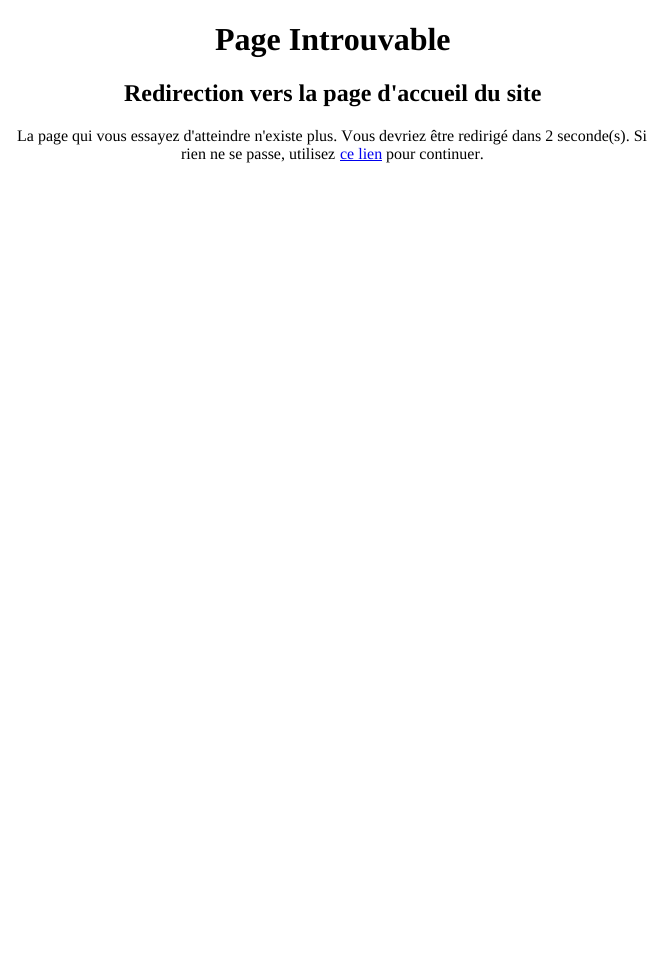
#include <cairo/cairo.h>
#include <math.h>
#include <stddef.h>


static void draw(cairo_t *cr) {
  cairo_set_source_rgb(cr, 1, 1, 1);
  cairo_paint(cr);
  cairo_set_source_rgb(cr, 0, 0, 238 / 255.0);
  cairo_rectangle(cr, 340, 160, 42, 1);
  cairo_fill(cr);
  cairo_select_font_face(cr, "Liberation Serif", CAIRO_FONT_SLANT_NORMAL, CAIRO_FONT_WEIGHT_BOLD);
  cairo_set_font_size(cr, 32);
  cairo_set_source_rgb(cr, 0, 0, 0);
  cairo_move_to(cr, 215, 50);
  cairo_show_text(cr, "Page Introuvable");
  cairo_set_font_size(cr, 24);
  cairo_move_to(cr, 124, 101);
  cairo_show_text(cr, "Redirection vers la page d'accueil du site");
  cairo_select_font_face(cr, "Liberation Serif", CAIRO_FONT_SLANT_NORMAL, CAIRO_FONT_WEIGHT_NORMAL);
  cairo_set_font_size(cr, 16);
  cairo_move_to(cr, 17, 141);
  cairo_show_text(cr, "La page qui vous essayez d'atteindre n'existe plus. Vous devriez être redirigé dans 2 seconde(s). Si");
  cairo_move_to(cr, 181, 159);
  cairo_show_text(cr, "rien ne se passe, utilisez");
  cairo_set_source_rgb(cr, 0, 0, 238 / 255.0);
  cairo_move_to(cr, 340, 159);
  cairo_show_text(cr, "ce lien");
  cairo_set_source_rgb(cr, 0, 0, 0);
  cairo_move_to(cr, 386, 159);
  cairo_show_text(cr, "pour continuer.");
}

int main(void) {
  cairo_surface_t *surface = cairo_image_surface_create(CAIRO_FORMAT_RGB24, 665, 976);
  cairo_t *cr = cairo_create(surface);
  cairo_font_options_t *options = cairo_font_options_create();
  cairo_font_options_set_hint_metrics(options, CAIRO_HINT_METRICS_OFF);
  cairo_font_options_set_hint_style(options, CAIRO_HINT_STYLE_NONE);
  cairo_set_font_options(cr, options);
  cairo_set_miter_limit(cr, 4);
  draw(cr);
  cairo_surface_write_to_png(surface, "out.png");
  cairo_font_options_destroy(options);
  cairo_destroy(cr);
  cairo_surface_destroy(surface);
  return 0;
}
